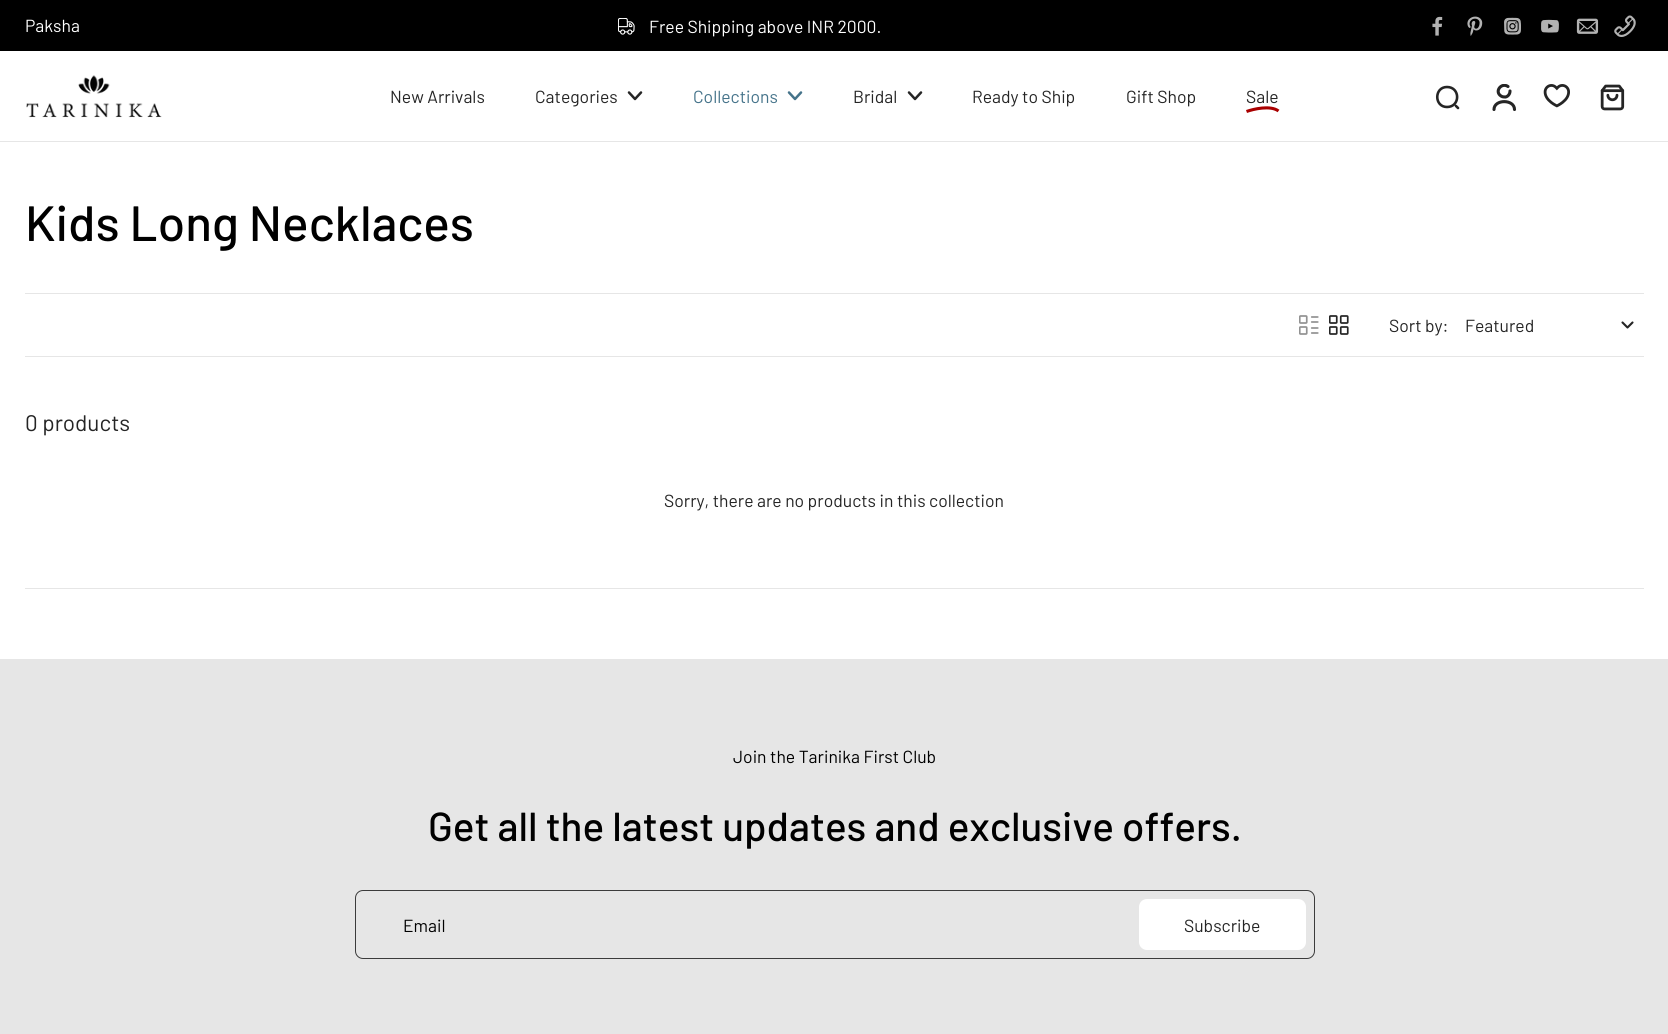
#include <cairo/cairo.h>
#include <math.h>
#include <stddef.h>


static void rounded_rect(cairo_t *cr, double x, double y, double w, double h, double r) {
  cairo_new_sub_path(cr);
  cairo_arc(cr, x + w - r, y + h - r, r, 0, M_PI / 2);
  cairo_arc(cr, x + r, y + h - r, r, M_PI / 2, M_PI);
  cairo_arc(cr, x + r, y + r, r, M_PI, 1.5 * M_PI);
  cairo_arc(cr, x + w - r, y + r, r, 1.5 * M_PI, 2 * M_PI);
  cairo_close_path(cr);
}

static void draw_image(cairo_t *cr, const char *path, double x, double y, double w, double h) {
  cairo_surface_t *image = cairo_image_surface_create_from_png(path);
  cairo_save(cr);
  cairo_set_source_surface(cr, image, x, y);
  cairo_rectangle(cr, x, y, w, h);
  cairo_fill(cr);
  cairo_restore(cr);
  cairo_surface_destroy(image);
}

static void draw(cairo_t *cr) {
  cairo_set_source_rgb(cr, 1, 1, 1);
  cairo_paint(cr);
  cairo_set_source_rgb(cr, 0, 0, 0);
  cairo_rectangle(cr, 0, 0, 1668, 51);
  cairo_fill(cr);
  draw_image(cr, "images/1.png", 618, 18, 17, 17);
  draw_image(cr, "images/2.png", 1432, 16, 11, 20);
  draw_image(cr, "images/3.png", 1467, 16, 16, 20);
  draw_image(cr, "images/4.png", 1504, 17, 17, 18);
  draw_image(cr, "images/5.png", 1541, 19, 18, 14);
  draw_image(cr, "images/6.png", 1576, 18, 23, 16);
  draw_image(cr, "images/7.png", 1614, 15, 22, 22);
  draw_image(cr, "images/8.png", 26, 75, 136, 43);
  cairo_new_path(cr);
  cairo_move_to(cr, 629, 92.5);
  cairo_line_to(cr, 635, 99);
  cairo_line_to(cr, 641, 92.5);
  cairo_set_source_rgb(cr, 37 / 255.0, 37 / 255.0, 37 / 255.0);
  cairo_set_line_width(cr, 2.5);
  cairo_set_line_cap(cr, CAIRO_LINE_CAP_ROUND);
  cairo_set_line_join(cr, CAIRO_LINE_JOIN_ROUND);
  cairo_stroke(cr);
  cairo_new_path(cr);
  cairo_move_to(cr, 789, 92.5);
  cairo_line_to(cr, 795, 99);
  cairo_line_to(cr, 801, 92.5);
  cairo_set_source_rgb(cr, 69 / 255.0, 115 / 255.0, 138 / 255.0);
  cairo_stroke(cr);
  cairo_new_path(cr);
  cairo_move_to(cr, 909, 92.5);
  cairo_line_to(cr, 915, 99);
  cairo_line_to(cr, 921, 92.5);
  cairo_set_source_rgb(cr, 37 / 255.0, 37 / 255.0, 37 / 255.0);
  cairo_stroke(cr);
  cairo_new_path(cr);
  cairo_move_to(cr, 1246.5, 111.5);
  cairo_curve_to(cr, 1253.5, 109, 1270.5, 105, 1278.5, 111);
  cairo_set_source_rgb(cr, 169 / 255.0, 0, 0);
  cairo_set_line_width(cr, 3.1);
  cairo_set_line_cap(cr, CAIRO_LINE_CAP_BUTT);
  cairo_set_line_join(cr, CAIRO_LINE_JOIN_MITER);
  cairo_stroke(cr);
  cairo_new_path(cr);
  cairo_move_to(cr, 1447, 107);
  cairo_curve_to(cr, 1460.5, 107, 1460.5, 87, 1447, 87);
  cairo_curve_to(cr, 1434, 87, 1434, 107, 1447, 107);
  cairo_close_path(cr);
  cairo_move_to(cr, 1458, 108);
  cairo_line_to(cr, 1456, 106);
  cairo_set_source_rgb(cr, 37 / 255.0, 37 / 255.0, 37 / 255.0);
  cairo_set_line_width(cr, 2.6);
  cairo_set_line_cap(cr, CAIRO_LINE_CAP_ROUND);
  cairo_set_line_join(cr, CAIRO_LINE_JOIN_ROUND);
  cairo_stroke(cr);
  cairo_save(cr);
  cairo_rectangle(cr, 1490, 84, 28, 27);
  cairo_clip(cr);
  cairo_new_path(cr);
  cairo_move_to(cr, 1508, 86.5);
  cairo_curve_to(cr, 1501.5, 82, 1494, 91.5, 1501, 96);
  cairo_curve_to(cr, 1502.5, 97, 1504, 97, 1505.5, 97);
  cairo_curve_to(cr, 1508, 96.5, 1510, 94, 1510, 91);
  cairo_set_line_width(cr, 3.1);
  cairo_stroke(cr);
  cairo_restore(cr);
  cairo_new_path(cr);
  cairo_move_to(cr, 1514.5, 109.5);
  cairo_curve_to(cr, 1514.5, 99, 1494, 99, 1494, 109.5);
  cairo_set_line_width(cr, 3.1);
  cairo_stroke(cr);
  draw_image(cr, "images/9.png", 1543, 84, 27, 24);
  draw_image(cr, "images/10.png", 1600, 84, 25, 27);
  cairo_set_source_rgb(cr, 230 / 255.0, 230 / 255.0, 230 / 255.0);
  cairo_rectangle(cr, 0, 141, 1668, 1);
  cairo_fill(cr);
  cairo_rectangle(cr, 25, 293, 1619, 1);
  cairo_fill(cr);
  cairo_rectangle(cr, 25, 356, 1619, 1);
  cairo_fill(cr);
  draw_image(cr, "images/11.png", 1299, 315, 20, 20);
  draw_image(cr, "images/12.png", 1329, 315, 20, 20);
  cairo_new_path(cr);
  cairo_move_to(cr, 1622.5, 322.5);
  cairo_line_to(cr, 1627.5, 327.5);
  cairo_line_to(cr, 1632.5, 322.5);
  cairo_set_source_rgb(cr, 37 / 255.0, 37 / 255.0, 37 / 255.0);
  cairo_set_line_width(cr, 2.1);
  cairo_stroke(cr);
  cairo_set_source_rgb(cr, 230 / 255.0, 230 / 255.0, 230 / 255.0);
  cairo_rectangle(cr, 25, 588, 1619, 1);
  cairo_fill(cr);
  cairo_rectangle(cr, 0, 659, 1668, 375);
  cairo_fill(cr);
  rounded_rect(cr, 355.5, 890.5, 959, 68, 7.5);
  cairo_set_source_rgb(cr, 59 / 255.0, 59 / 255.0, 59 / 255.0);
  cairo_set_line_width(cr, 1);
  cairo_set_line_cap(cr, CAIRO_LINE_CAP_BUTT);
  cairo_set_line_join(cr, CAIRO_LINE_JOIN_MITER);
  cairo_stroke(cr);
  cairo_set_source_rgb(cr, 1, 1, 1);
  rounded_rect(cr, 1139, 899, 167, 51, 8);
  cairo_fill(cr);
  cairo_select_font_face(cr, "Barlow", CAIRO_FONT_SLANT_NORMAL, CAIRO_FONT_WEIGHT_NORMAL);
  cairo_set_font_size(cr, 17.5);
  cairo_move_to(cr, 25, 32);
  cairo_show_text(cr, "Paksha");
  cairo_move_to(cr, 649, 33);
  cairo_show_text(cr, "Free Shipping above INR 2000.");
  cairo_set_source_rgb(cr, 37 / 255.0, 37 / 255.0, 37 / 255.0);
  cairo_move_to(cr, 390, 103);
  cairo_show_text(cr, "New Arrivals");
  cairo_move_to(cr, 535, 103);
  cairo_show_text(cr, "Categories");
  cairo_set_source_rgb(cr, 69 / 255.0, 115 / 255.0, 138 / 255.0);
  cairo_move_to(cr, 693, 103);
  cairo_show_text(cr, "Collections");
  cairo_set_source_rgb(cr, 37 / 255.0, 37 / 255.0, 37 / 255.0);
  cairo_move_to(cr, 853, 103);
  cairo_show_text(cr, "Bridal");
  cairo_move_to(cr, 972, 103);
  cairo_show_text(cr, "Ready to Ship");
  cairo_move_to(cr, 1126, 103);
  cairo_show_text(cr, "Gift Shop");
  cairo_move_to(cr, 1246, 103);
  cairo_show_text(cr, "Sale");
  cairo_select_font_face(cr, "Barlow Medium", CAIRO_FONT_SLANT_NORMAL, CAIRO_FONT_WEIGHT_NORMAL);
  cairo_set_font_size(cr, 49.5);
  cairo_set_source_rgb(cr, 0, 0, 0);
  cairo_move_to(cr, 25, 241);
  cairo_show_text(cr, "Kids Long Necklaces");
  cairo_select_font_face(cr, "Barlow", CAIRO_FONT_SLANT_NORMAL, CAIRO_FONT_WEIGHT_NORMAL);
  cairo_set_font_size(cr, 17.5);
  cairo_set_source_rgb(cr, 37 / 255.0, 37 / 255.0, 37 / 255.0);
  cairo_move_to(cr, 1389, 332);
  cairo_show_text(cr, "Sort by:");
  cairo_move_to(cr, 1465, 332);
  cairo_show_text(cr, "Featured");
  cairo_set_font_size(cr, 22.5);
  cairo_move_to(cr, 25, 431);
  cairo_show_text(cr, "0 products");
  cairo_set_font_size(cr, 17.5);
  cairo_move_to(cr, 664, 507);
  cairo_show_text(cr, "Sorry, there are no products in this collection");
  cairo_set_source_rgb(cr, 0, 0, 0);
  cairo_move_to(cr, 733, 763);
  cairo_show_text(cr, "Join the Tarinika First Club");
  cairo_select_font_face(cr, "Barlow Medium", CAIRO_FONT_SLANT_NORMAL, CAIRO_FONT_WEIGHT_NORMAL);
  cairo_set_font_size(cr, 40.5);
  cairo_move_to(cr, 428, 841);
  cairo_show_text(cr, "Get all the latest updates and exclusive offers.");
  cairo_select_font_face(cr, "Barlow", CAIRO_FONT_SLANT_NORMAL, CAIRO_FONT_WEIGHT_NORMAL);
  cairo_set_font_size(cr, 17.5);
  cairo_move_to(cr, 403, 932);
  cairo_show_text(cr, "Email");
  cairo_set_source_rgb(cr, 37 / 255.0, 37 / 255.0, 37 / 255.0);
  cairo_move_to(cr, 1184, 932);
  cairo_show_text(cr, "Subscribe");
}

int main(void) {
  cairo_surface_t *surface = cairo_image_surface_create(CAIRO_FORMAT_RGB24, 1668, 1034);
  cairo_t *cr = cairo_create(surface);
  cairo_font_options_t *options = cairo_font_options_create();
  cairo_font_options_set_hint_metrics(options, CAIRO_HINT_METRICS_OFF);
  cairo_font_options_set_hint_style(options, CAIRO_HINT_STYLE_NONE);
  cairo_set_font_options(cr, options);
  cairo_set_miter_limit(cr, 4);
  draw(cr);
  cairo_surface_write_to_png(surface, "out.png");
  cairo_font_options_destroy(options);
  cairo_destroy(cr);
  cairo_surface_destroy(surface);
  return 0;
}
